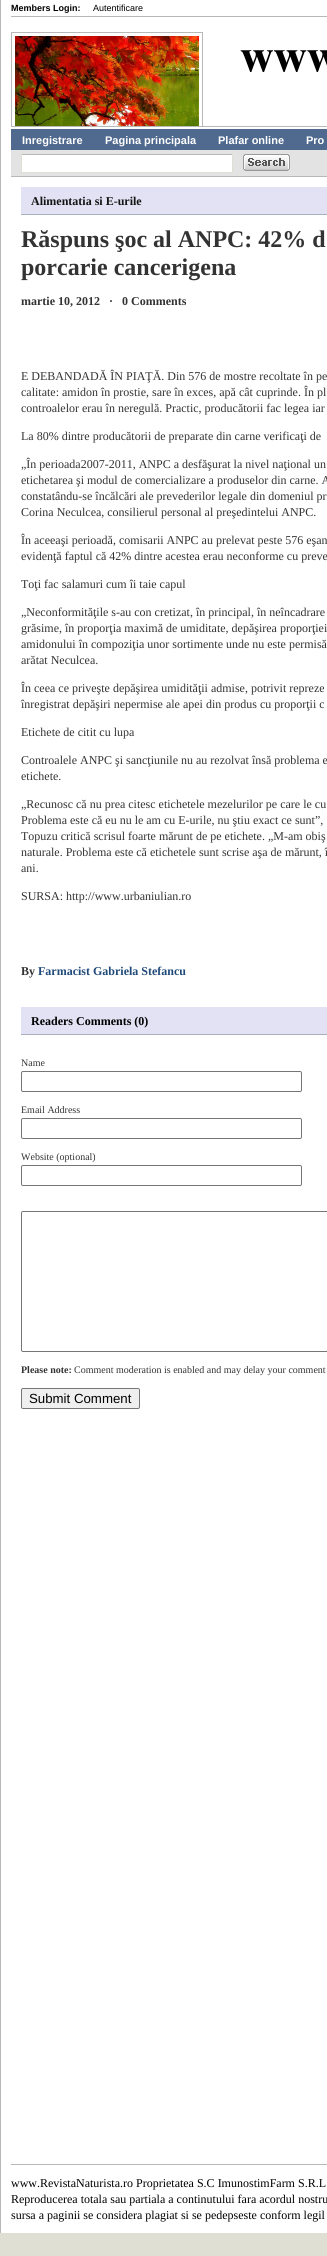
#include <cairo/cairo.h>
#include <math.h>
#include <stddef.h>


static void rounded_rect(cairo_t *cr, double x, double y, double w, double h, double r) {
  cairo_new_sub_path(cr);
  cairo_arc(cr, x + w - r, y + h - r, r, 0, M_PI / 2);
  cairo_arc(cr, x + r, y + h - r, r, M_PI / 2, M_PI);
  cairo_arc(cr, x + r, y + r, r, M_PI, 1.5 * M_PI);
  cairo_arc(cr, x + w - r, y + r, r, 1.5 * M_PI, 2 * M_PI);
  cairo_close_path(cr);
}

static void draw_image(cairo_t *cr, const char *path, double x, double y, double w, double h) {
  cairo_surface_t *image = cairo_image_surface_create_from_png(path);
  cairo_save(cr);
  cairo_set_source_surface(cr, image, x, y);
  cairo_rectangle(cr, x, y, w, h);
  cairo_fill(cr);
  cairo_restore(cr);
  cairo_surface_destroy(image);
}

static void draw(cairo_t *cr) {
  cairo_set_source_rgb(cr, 223 / 255.0, 224 / 255.0, 211 / 255.0);
  cairo_paint(cr);
  cairo_set_source_rgb(cr, 1, 1, 1);
  cairo_rectangle(cr, 1, 0, 326, 2233);
  cairo_fill(cr);
  cairo_set_source_rgb(cr, 184 / 255.0, 184 / 255.0, 184 / 255.0);
  cairo_rectangle(cr, 0, 0, 1, 2233);
  cairo_fill(cr);
  cairo_rectangle(cr, 11, 16, 316, 1);
  cairo_fill(cr);
  cairo_rectangle(cr, 11, 126, 316, 1);
  cairo_fill(cr);
  cairo_save(cr);
  cairo_rectangle(cr, 11, 17, 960, 109);
  cairo_clip(cr);
  cairo_rectangle(cr, 11.5, 32.5, 191, 97);
  cairo_set_line_width(cr, 1);
  cairo_stroke(cr);
  cairo_restore(cr);
  draw_image(cr, "images/1.png", 15, 36, 184, 90);
  draw_image(cr, "images/2.png", 240, 50, 87, 22);
  cairo_set_source_rgb(cr, 80 / 255.0, 106 / 255.0, 143 / 255.0);
  cairo_rectangle(cr, 11, 129, 316, 21);
  cairo_fill(cr);
  cairo_set_source_rgb(cr, 228 / 255.0, 227 / 255.0, 227 / 255.0);
  cairo_rectangle(cr, 11, 150, 316, 26);
  cairo_fill(cr);
  cairo_set_source_rgb(cr, 184 / 255.0, 184 / 255.0, 184 / 255.0);
  cairo_rectangle(cr, 11, 176, 316, 1);
  cairo_fill(cr);
  cairo_set_source_rgb(cr, 1, 1, 1);
  cairo_rectangle(cr, 22, 155, 210, 17);
  cairo_fill(cr);
  cairo_set_source_rgb(cr, 184 / 255.0, 184 / 255.0, 184 / 255.0);
  cairo_rectangle(cr, 21, 154, 212, 1);
  cairo_fill(cr);
  cairo_set_source_rgb(cr, 223 / 255.0, 224 / 255.0, 211 / 255.0);
  cairo_rectangle(cr, 232, 154, 1, 19);
  cairo_fill(cr);
  cairo_rectangle(cr, 21, 172, 212, 1);
  cairo_fill(cr);
  cairo_rectangle(cr, 21, 154, 1, 19);
  cairo_fill(cr);
  draw_image(cr, "images/3.png", 243, 154, 47, 17);
  cairo_set_source_rgb(cr, 226 / 255.0, 226 / 255.0, 244 / 255.0);
  cairo_rectangle(cr, 21, 187, 306, 27);
  cairo_fill(cr);
  cairo_set_source_rgb(cr, 167 / 255.0, 177 / 255.0, 190 / 255.0);
  cairo_rectangle(cr, 21, 214, 306, 1);
  cairo_fill(cr);
  cairo_set_source_rgb(cr, 226 / 255.0, 226 / 255.0, 244 / 255.0);
  cairo_rectangle(cr, 21, 1007, 306, 27);
  cairo_fill(cr);
  cairo_set_source_rgb(cr, 167 / 255.0, 177 / 255.0, 190 / 255.0);
  cairo_rectangle(cr, 21, 1034, 306, 1);
  cairo_fill(cr);
  rounded_rect(cr, 21.5, 1071.5, 280, 20, 1.5);
  cairo_set_source_rgb(cr, 118 / 255.0, 118 / 255.0, 118 / 255.0);
  cairo_set_line_width(cr, 1);
  cairo_stroke(cr);
  rounded_rect(cr, 21.5, 1118.5, 280, 20, 1.5);
  cairo_stroke(cr);
  rounded_rect(cr, 21.5, 1165.5, 280, 20, 1.5);
  cairo_stroke(cr);
  rounded_rect(cr, 21.5, 1211.5, 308, 140, 1.5);
  cairo_stroke(cr);
  cairo_set_source_rgb(cr, 239 / 255.0, 239 / 255.0, 239 / 255.0);
  rounded_rect(cr, 21.5, 1388.5, 118, 20, 1.5);
  cairo_fill_preserve(cr);
  cairo_set_source_rgb(cr, 118 / 255.0, 118 / 255.0, 118 / 255.0);
  cairo_stroke(cr);
  cairo_set_source_rgb(cr, 184 / 255.0, 184 / 255.0, 184 / 255.0);
  cairo_rectangle(cr, 11, 2164, 316, 1);
  cairo_fill(cr);
  cairo_select_font_face(cr, "Liberation Sans", CAIRO_FONT_SLANT_NORMAL, CAIRO_FONT_WEIGHT_BOLD);
  cairo_set_font_size(cr, 9);
  cairo_set_source_rgb(cr, 0, 0, 0);
  cairo_move_to(cr, 11, 11);
  cairo_show_text(cr, "Members Login:");
  cairo_select_font_face(cr, "Liberation Sans", CAIRO_FONT_SLANT_NORMAL, CAIRO_FONT_WEIGHT_NORMAL);
  cairo_move_to(cr, 93, 11);
  cairo_show_text(cr, "Autentificare");
  cairo_select_font_face(cr, "Liberation Sans", CAIRO_FONT_SLANT_NORMAL, CAIRO_FONT_WEIGHT_BOLD);
  cairo_set_font_size(cr, 11);
  cairo_set_source_rgb(cr, 1, 1, 1);
  cairo_move_to(cr, 22, 144);
  cairo_show_text(cr, "Inregistrare");
  cairo_move_to(cr, 105, 144);
  cairo_show_text(cr, "Pagina principala");
  cairo_move_to(cr, 218, 144);
  cairo_show_text(cr, "Plafar online");
  cairo_move_to(cr, 306, 144);
  cairo_show_text(cr, "Pro");
  cairo_select_font_face(cr, "Liberation Serif", CAIRO_FONT_SLANT_NORMAL, CAIRO_FONT_WEIGHT_BOLD);
  cairo_set_font_size(cr, 12);
  cairo_set_source_rgb(cr, 21 / 255.0, 21 / 255.0, 21 / 255.0);
  cairo_move_to(cr, 31, 205);
  cairo_show_text(cr, "Alimentatia si E-urile");
  cairo_set_font_size(cr, 24);
  cairo_set_source_rgb(cr, 51 / 255.0, 51 / 255.0, 51 / 255.0);
  cairo_move_to(cr, 21, 247);
  cairo_show_text(cr, "Răspuns şoc al ANPC: 42% d");
  cairo_move_to(cr, 21, 275);
  cairo_show_text(cr, "porcarie cancerigena");
  cairo_set_font_size(cr, 12);
  cairo_move_to(cr, 21, 305);
  cairo_show_text(cr, "martie 10, 2012");
  cairo_move_to(cr, 109, 305);
  cairo_show_text(cr, "·");
  cairo_move_to(cr, 122, 305);
  cairo_show_text(cr, "0 Comments");
  cairo_select_font_face(cr, "Liberation Serif", CAIRO_FONT_SLANT_NORMAL, CAIRO_FONT_WEIGHT_NORMAL);
  cairo_move_to(cr, 21, 380);
  cairo_show_text(cr, "E DEBANDADĂ ÎN PIAŢĂ. Din 576 de mostre recoltate în pe");
  cairo_move_to(cr, 21, 396);
  cairo_show_text(cr, "calitate: amidon în prostie, sare în exces, apă cât cuprinde. În pl");
  cairo_move_to(cr, 21, 412);
  cairo_show_text(cr, "controalelor erau în neregulă. Practic, producătorii fac legea iar");
  cairo_move_to(cr, 21, 440);
  cairo_show_text(cr, "La 80% dintre producătorii de preparate din carne verificaţi de");
  cairo_move_to(cr, 21, 468);
  cairo_show_text(cr, "„În perioada2007-2011, ANPC a desfăşurat la nivel naţional un");
  cairo_move_to(cr, 21, 484);
  cairo_show_text(cr, "etichetarea şi modul de comercializare a produselor din carne. A");
  cairo_move_to(cr, 21, 500);
  cairo_show_text(cr, "constatându-se încălcări ale prevederilor legale din domeniul pr");
  cairo_move_to(cr, 21, 516);
  cairo_show_text(cr, "Corina Neculcea, consilierul personal al preşedintelui ANPC.");
  cairo_move_to(cr, 21, 544);
  cairo_show_text(cr, "În aceeaşi perioadă, comisarii ANPC au prelevat peste 576 eşan");
  cairo_move_to(cr, 21, 560);
  cairo_show_text(cr, "evidenţă faptul că 42% dintre acestea erau neconforme cu preve");
  cairo_move_to(cr, 21, 588);
  cairo_show_text(cr, "Toţi fac salamuri cum îi taie capul");
  cairo_move_to(cr, 21, 616);
  cairo_show_text(cr, "„Neconformităţile s-au con cretizat, în principal, în neîncadrare");
  cairo_move_to(cr, 21, 632);
  cairo_show_text(cr, "grăsime, în proporţia maximă de umiditate, depăşirea proporţiei");
  cairo_move_to(cr, 21, 648);
  cairo_show_text(cr, "amidonului în compoziţia unor sortimente unde nu este permisă");
  cairo_move_to(cr, 21, 664);
  cairo_show_text(cr, "arătat Neculcea.");
  cairo_move_to(cr, 21, 692);
  cairo_show_text(cr, "În ceea ce priveşte depăşirea umidităţii admise, potrivit repreze");
  cairo_move_to(cr, 21, 708);
  cairo_show_text(cr, "înregistrat depăşiri nepermise ale apei din produs cu proporţii c");
  cairo_move_to(cr, 21, 736);
  cairo_show_text(cr, "Etichete de citit cu lupa");
  cairo_move_to(cr, 21, 764);
  cairo_show_text(cr, "Controalele ANPC şi sancţiunile nu au rezolvat însă problema e");
  cairo_move_to(cr, 21, 780);
  cairo_show_text(cr, "etichete.");
  cairo_move_to(cr, 21, 808);
  cairo_show_text(cr, "„Recunosc că nu prea citesc etichetele mezelurilor pe care le cu");
  cairo_move_to(cr, 21, 824);
  cairo_show_text(cr, "Problema este că eu nu le am cu E-urile, nu ştiu exact ce sunt”,");
  cairo_move_to(cr, 21, 840);
  cairo_show_text(cr, "Topuzu critică scrisul foarte mărunt de pe etichete. „M-am obiş");
  cairo_move_to(cr, 21, 856);
  cairo_show_text(cr, "naturale. Problema este că etichetele sunt scrise aşa de mărunt, î");
  cairo_move_to(cr, 21, 872);
  cairo_show_text(cr, "ani.");
  cairo_move_to(cr, 21, 900);
  cairo_show_text(cr, "SURSA: http://www.urbaniulian.ro");
  cairo_select_font_face(cr, "Liberation Serif", CAIRO_FONT_SLANT_NORMAL, CAIRO_FONT_WEIGHT_BOLD);
  cairo_move_to(cr, 21, 975);
  cairo_show_text(cr, "By");
  cairo_set_source_rgb(cr, 32 / 255.0, 74 / 255.0, 122 / 255.0);
  cairo_move_to(cr, 38, 975);
  cairo_show_text(cr, "Farmacist Gabriela Stefancu");
  cairo_set_source_rgb(cr, 0, 0, 0);
  cairo_move_to(cr, 31, 1025);
  cairo_show_text(cr, "Readers Comments (0)");
  cairo_select_font_face(cr, "Liberation Serif", CAIRO_FONT_SLANT_NORMAL, CAIRO_FONT_WEIGHT_NORMAL);
  cairo_set_font_size(cr, 10);
  cairo_set_source_rgb(cr, 51 / 255.0, 51 / 255.0, 51 / 255.0);
  cairo_move_to(cr, 21, 1066);
  cairo_show_text(cr, "Name");
  cairo_move_to(cr, 21, 1113);
  cairo_show_text(cr, "Email Address");
  cairo_move_to(cr, 21, 1160);
  cairo_show_text(cr, "Website (optional)");
  cairo_select_font_face(cr, "Liberation Serif", CAIRO_FONT_SLANT_NORMAL, CAIRO_FONT_WEIGHT_BOLD);
  cairo_move_to(cr, 21, 1373);
  cairo_show_text(cr, "Please note:");
  cairo_select_font_face(cr, "Liberation Serif", CAIRO_FONT_SLANT_NORMAL, CAIRO_FONT_WEIGHT_NORMAL);
  cairo_move_to(cr, 74, 1373);
  cairo_show_text(cr, "Comment moderation is enabled and may delay your comment");
  cairo_select_font_face(cr, "Liberation Sans", CAIRO_FONT_SLANT_NORMAL, CAIRO_FONT_WEIGHT_NORMAL);
  cairo_set_font_size(cr, 13.25);
  cairo_set_source_rgb(cr, 0, 0, 0);
  cairo_move_to(cr, 29, 1403);
  cairo_show_text(cr, "Submit Comment");
  cairo_select_font_face(cr, "Liberation Serif", CAIRO_FONT_SLANT_NORMAL, CAIRO_FONT_WEIGHT_NORMAL);
  cairo_set_font_size(cr, 12);
  cairo_move_to(cr, 11, 2187);
  cairo_show_text(cr, "www.RevistaNaturista.ro Proprietatea S.C ImunostimFarm S.R.L");
  cairo_move_to(cr, 11, 2203);
  cairo_show_text(cr, "Reproducerea totala sau partiala a continutului fara acordul nostru");
  cairo_move_to(cr, 11, 2219);
  cairo_show_text(cr, "sursa a paginii se considera plagiat si se pedepseste conform legil");
}

int main(void) {
  cairo_surface_t *surface = cairo_image_surface_create(CAIRO_FORMAT_RGB24, 327, 2256);
  cairo_t *cr = cairo_create(surface);
  cairo_font_options_t *options = cairo_font_options_create();
  cairo_font_options_set_hint_metrics(options, CAIRO_HINT_METRICS_OFF);
  cairo_font_options_set_hint_style(options, CAIRO_HINT_STYLE_NONE);
  cairo_set_font_options(cr, options);
  cairo_set_miter_limit(cr, 4);
  draw(cr);
  cairo_surface_write_to_png(surface, "out.png");
  cairo_font_options_destroy(options);
  cairo_destroy(cr);
  cairo_surface_destroy(surface);
  return 0;
}
